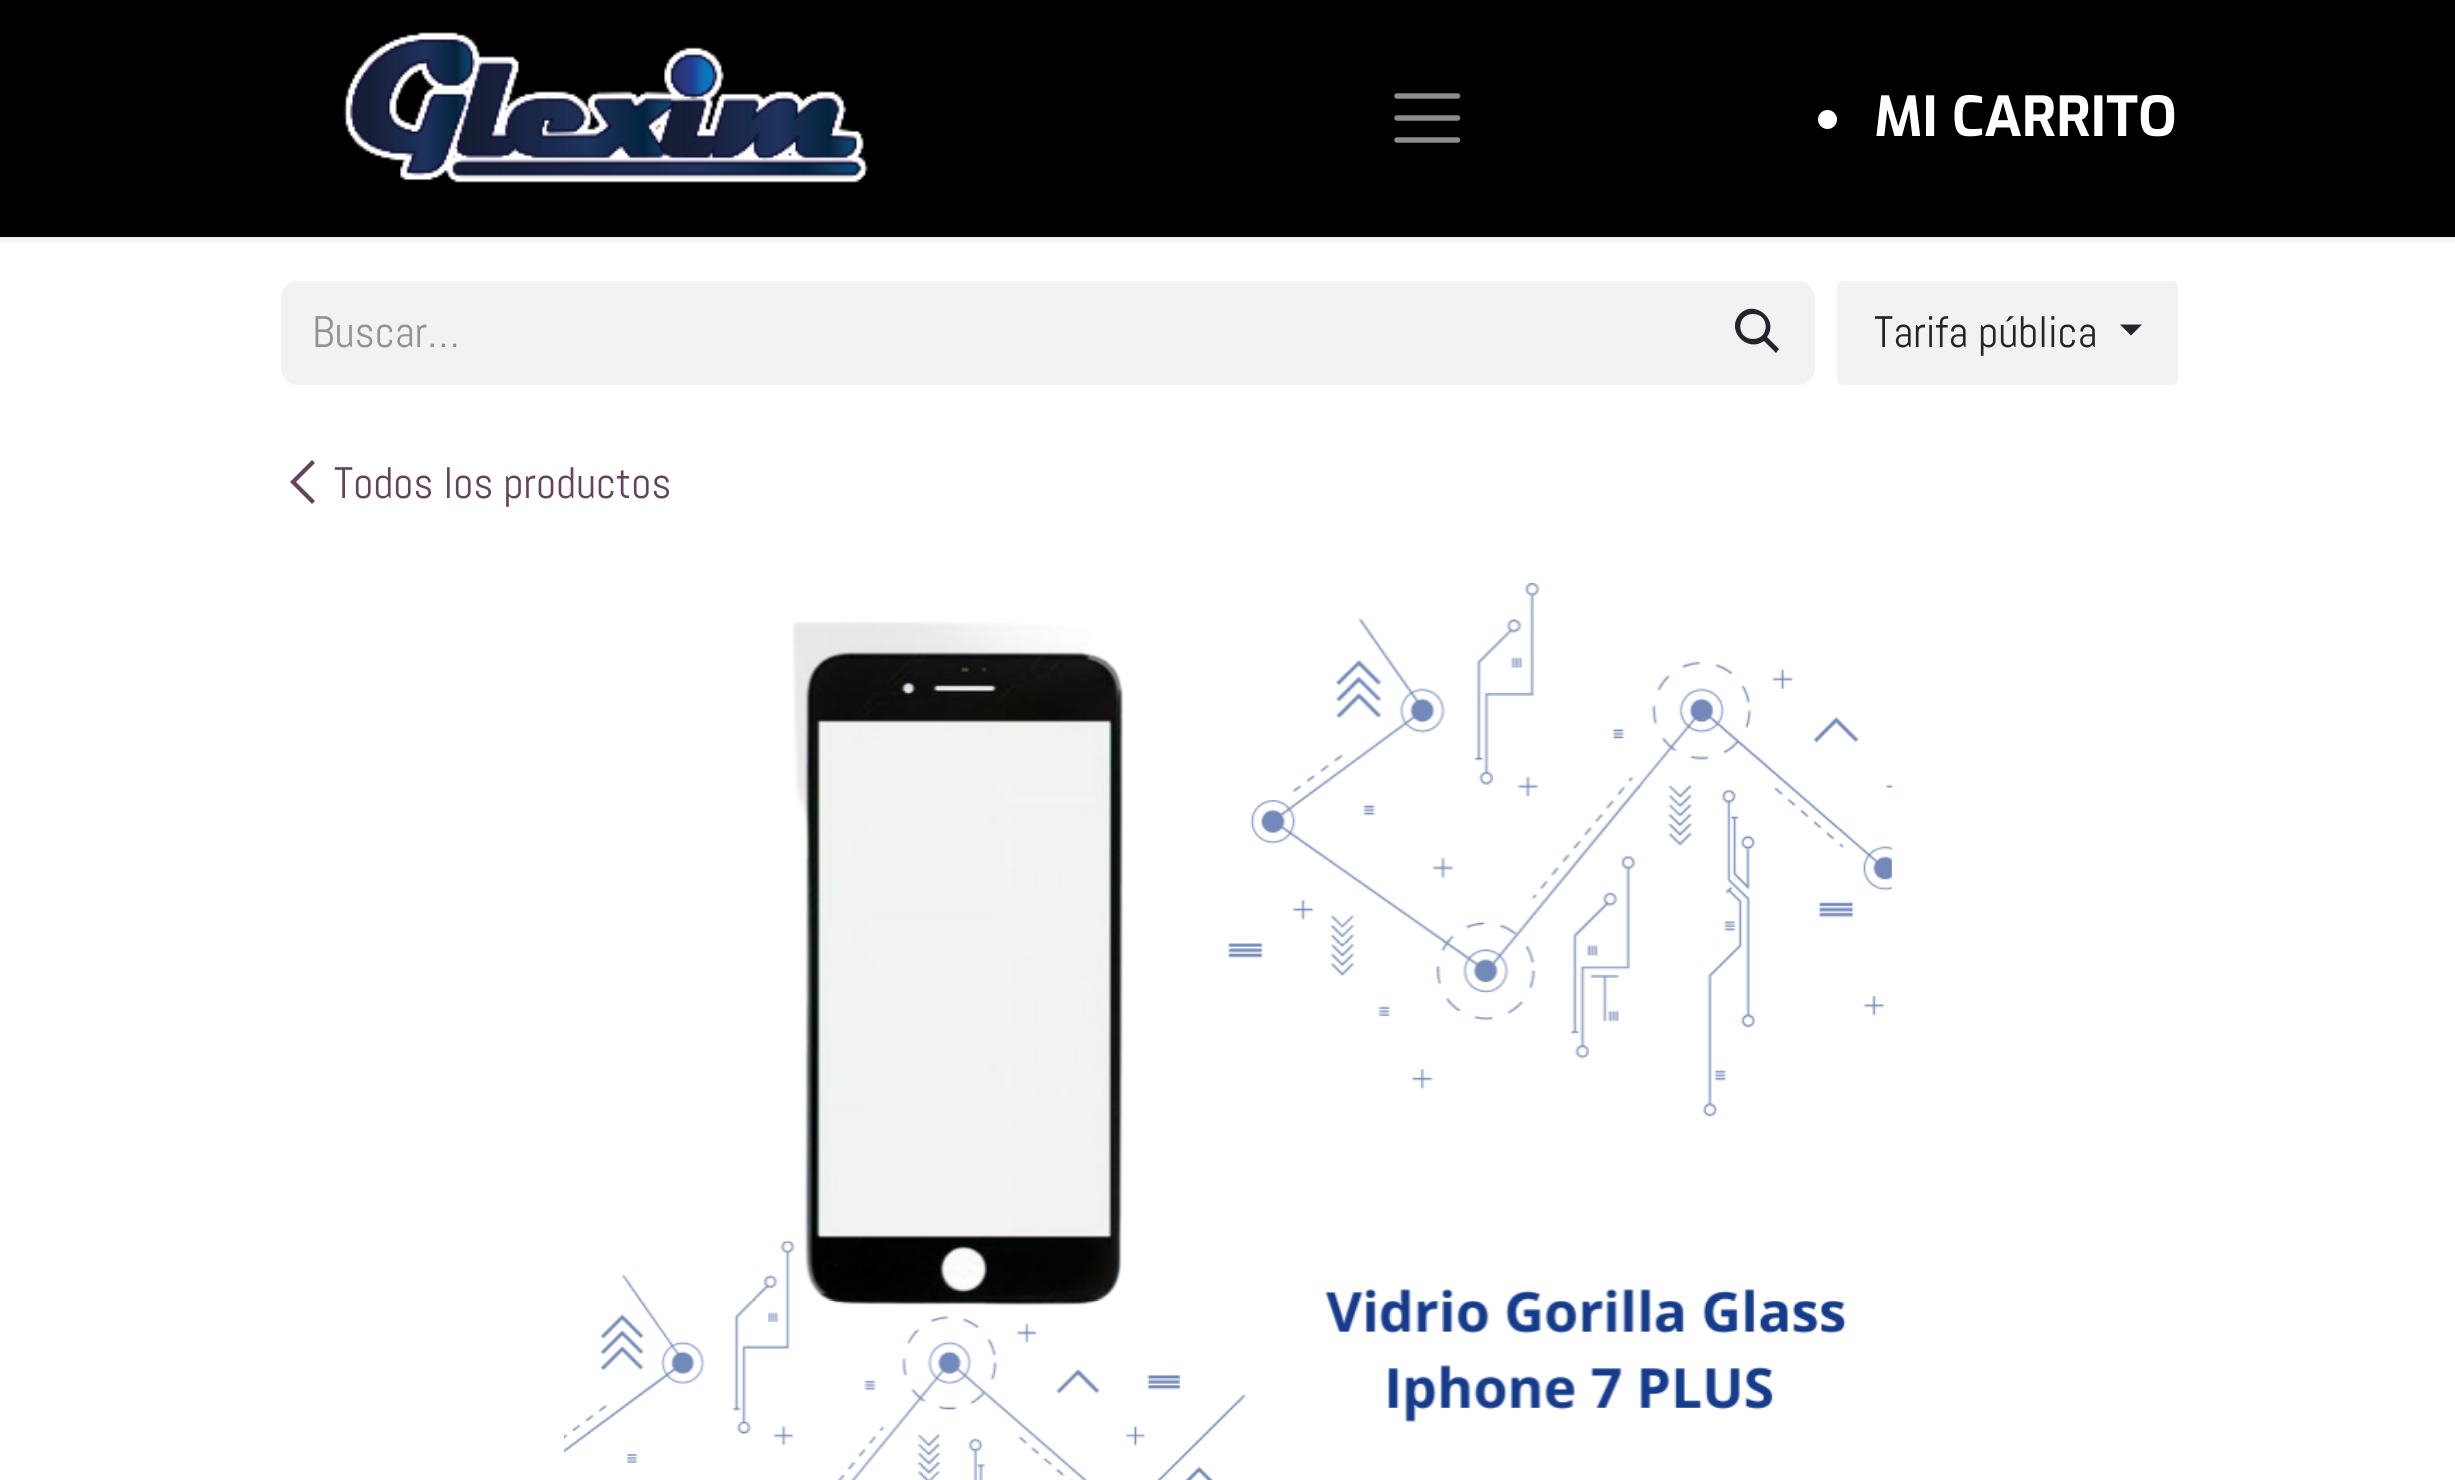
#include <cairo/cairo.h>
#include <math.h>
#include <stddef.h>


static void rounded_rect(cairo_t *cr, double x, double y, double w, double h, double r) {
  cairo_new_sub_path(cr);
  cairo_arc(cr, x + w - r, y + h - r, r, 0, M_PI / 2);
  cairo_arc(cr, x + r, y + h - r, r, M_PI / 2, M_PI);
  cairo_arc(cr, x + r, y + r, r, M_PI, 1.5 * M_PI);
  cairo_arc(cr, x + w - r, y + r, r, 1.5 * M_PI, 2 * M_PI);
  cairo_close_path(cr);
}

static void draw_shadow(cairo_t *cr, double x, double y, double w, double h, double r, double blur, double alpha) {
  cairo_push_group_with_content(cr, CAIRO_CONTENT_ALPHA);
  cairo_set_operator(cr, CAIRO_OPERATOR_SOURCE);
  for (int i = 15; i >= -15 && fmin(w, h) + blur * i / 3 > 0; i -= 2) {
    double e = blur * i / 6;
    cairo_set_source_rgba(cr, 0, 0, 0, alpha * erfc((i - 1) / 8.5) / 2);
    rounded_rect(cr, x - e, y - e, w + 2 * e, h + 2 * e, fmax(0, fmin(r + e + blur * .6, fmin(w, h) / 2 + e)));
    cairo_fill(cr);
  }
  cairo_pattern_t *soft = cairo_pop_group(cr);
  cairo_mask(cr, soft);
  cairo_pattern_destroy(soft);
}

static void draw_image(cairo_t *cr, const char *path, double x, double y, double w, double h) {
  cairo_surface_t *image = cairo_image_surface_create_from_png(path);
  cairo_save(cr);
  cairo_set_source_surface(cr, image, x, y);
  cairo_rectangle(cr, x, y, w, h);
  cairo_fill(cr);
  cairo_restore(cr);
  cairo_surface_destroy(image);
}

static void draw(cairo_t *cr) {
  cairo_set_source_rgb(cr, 1, 1, 1);
  cairo_paint(cr);
  cairo_set_source_rgb(cr, 0, 0, 0);
  draw_shadow(cr, 0, 3, 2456, 236, 0, 4, 0.1);
  cairo_set_source_rgb(cr, 0, 0, 0);
  cairo_rectangle(cr, 0, 0, 2455, 237);
  cairo_fill(cr);
  draw_image(cr, "images/1.png", 343, 32, 525, 151);
  cairo_new_path(cr);
  cairo_move_to(cr, 1397, 96);
  cairo_line_to(cr, 1457.5, 96);
  cairo_move_to(cr, 1397, 118);
  cairo_line_to(cr, 1457.5, 118);
  cairo_move_to(cr, 1397, 140);
  cairo_line_to(cr, 1457.5, 140);
  cairo_set_source_rgb(cr, 140 / 255.0, 140 / 255.0, 140 / 255.0);
  cairo_set_line_width(cr, 5.5);
  cairo_set_line_cap(cr, CAIRO_LINE_CAP_ROUND);
  cairo_stroke(cr);
  cairo_set_source_rgb(cr, 1, 1, 1);
  cairo_arc(cr, 1827.5, 119.5, 9.5, 0, 2 * M_PI);
  cairo_fill(cr);
  cairo_set_source_rgb(cr, 243 / 255.0, 242 / 255.0, 242 / 255.0);
  cairo_new_path(cr);
  cairo_move_to(cr, 298, 281);
  cairo_line_to(cr, 1702, 281);
  cairo_line_to(cr, 1702, 385);
  cairo_line_to(cr, 298, 385);
  cairo_curve_to(cr, 288.5, 385, 281, 377.5, 281, 368);
  cairo_line_to(cr, 281, 298);
  cairo_curve_to(cr, 281, 288.5, 288.5, 281, 298, 281);
  cairo_close_path(cr);
  cairo_fill(cr);
  cairo_new_path(cr);
  cairo_move_to(cr, 1701.5, 282.5);
  cairo_line_to(cr, 1798, 282.5);
  cairo_curve_to(cr, 1806.5, 282.5, 1813.5, 289.5, 1813.5, 298);
  cairo_line_to(cr, 1813.5, 368);
  cairo_curve_to(cr, 1813.5, 376.5, 1806.5, 383.5, 1798, 383.5);
  cairo_line_to(cr, 1701.5, 383.5);
  cairo_close_path(cr);
  cairo_fill_preserve(cr);
  cairo_set_line_width(cr, 3);
  cairo_set_line_cap(cr, CAIRO_LINE_CAP_BUTT);
  cairo_stroke(cr);
  cairo_set_source_rgb(cr, 33 / 255.0, 37 / 255.0, 41 / 255.0);
  cairo_new_path(cr);
  cairo_move_to(cr, 1739, 315);
  cairo_curve_to(cr, 1753, 298, 1780, 319, 1767, 337);
  cairo_line_to(cr, 1779, 349);
  cairo_line_to(cr, 1776, 353);
  cairo_line_to(cr, 1764, 341);
  cairo_curve_to(cr, 1747, 353, 1726, 331, 1739, 315);
  cairo_close_path(cr);
  cairo_move_to(cr, 1753, 314);
  cairo_curve_to(cr, 1736, 314, 1736, 339, 1753, 339);
  cairo_curve_to(cr, 1770, 339, 1770, 314, 1753, 314);
  cairo_close_path(cr);
  cairo_fill(cr);
  cairo_set_source_rgb(cr, 243 / 255.0, 242 / 255.0, 242 / 255.0);
  rounded_rect(cr, 1838.5, 282.5, 338, 101, 4.5);
  cairo_fill_preserve(cr);
  cairo_stroke(cr);
  cairo_set_source_rgb(cr, 33 / 255.0, 37 / 255.0, 41 / 255.0);
  cairo_new_path(cr);
  cairo_move_to(cr, 2120, 324.5);
  cairo_line_to(cr, 2142, 324.5);
  cairo_line_to(cr, 2131, 335.5);
  cairo_close_path(cr);
  cairo_fill(cr);
  cairo_set_source_rgb(cr, 101 / 255.0, 67 / 255.0, 92 / 255.0);
  cairo_new_path(cr);
  cairo_move_to(cr, 290, 482);
  cairo_line_to(cr, 312, 460);
  cairo_line_to(cr, 315, 463);
  cairo_line_to(cr, 296, 482);
  cairo_line_to(cr, 315, 501);
  cairo_line_to(cr, 312, 504);
  cairo_close_path(cr);
  cairo_fill(cr);
  draw_image(cr, "images/2.png", 564, 583, 1328, 897);
  cairo_select_font_face(cr, "Exo", CAIRO_FONT_SLANT_NORMAL, CAIRO_FONT_WEIGHT_BOLD);
  cairo_set_font_size(cr, 55);
  cairo_set_source_rgb(cr, 1, 1, 1);
  cairo_move_to(cr, 1874, 136);
  cairo_show_text(cr, "MI CARRITO");
  cairo_select_font_face(cr, "Abel", CAIRO_FONT_SLANT_NORMAL, CAIRO_FONT_WEIGHT_NORMAL);
  cairo_set_font_size(cr, 44);
  cairo_set_source_rgb(cr, 144 / 255.0, 146 / 255.0, 148 / 255.0);
  cairo_move_to(cr, 312, 347);
  cairo_show_text(cr, "Buscar…");
  cairo_set_source_rgb(cr, 33 / 255.0, 37 / 255.0, 41 / 255.0);
  cairo_move_to(cr, 1874, 347);
  cairo_show_text(cr, "Tarifa pública");
  cairo_set_source_rgb(cr, 101 / 255.0, 67 / 255.0, 92 / 255.0);
  cairo_move_to(cr, 334, 498);
  cairo_show_text(cr, "Todos los productos");
}

int main(void) {
  cairo_surface_t *surface = cairo_image_surface_create(CAIRO_FORMAT_RGB24, 2455, 1480);
  cairo_t *cr = cairo_create(surface);
  cairo_font_options_t *options = cairo_font_options_create();
  cairo_font_options_set_hint_metrics(options, CAIRO_HINT_METRICS_OFF);
  cairo_font_options_set_hint_style(options, CAIRO_HINT_STYLE_NONE);
  cairo_set_font_options(cr, options);
  cairo_set_miter_limit(cr, 4);
  draw(cr);
  cairo_surface_write_to_png(surface, "out.png");
  cairo_font_options_destroy(options);
  cairo_destroy(cr);
  cairo_surface_destroy(surface);
  return 0;
}
